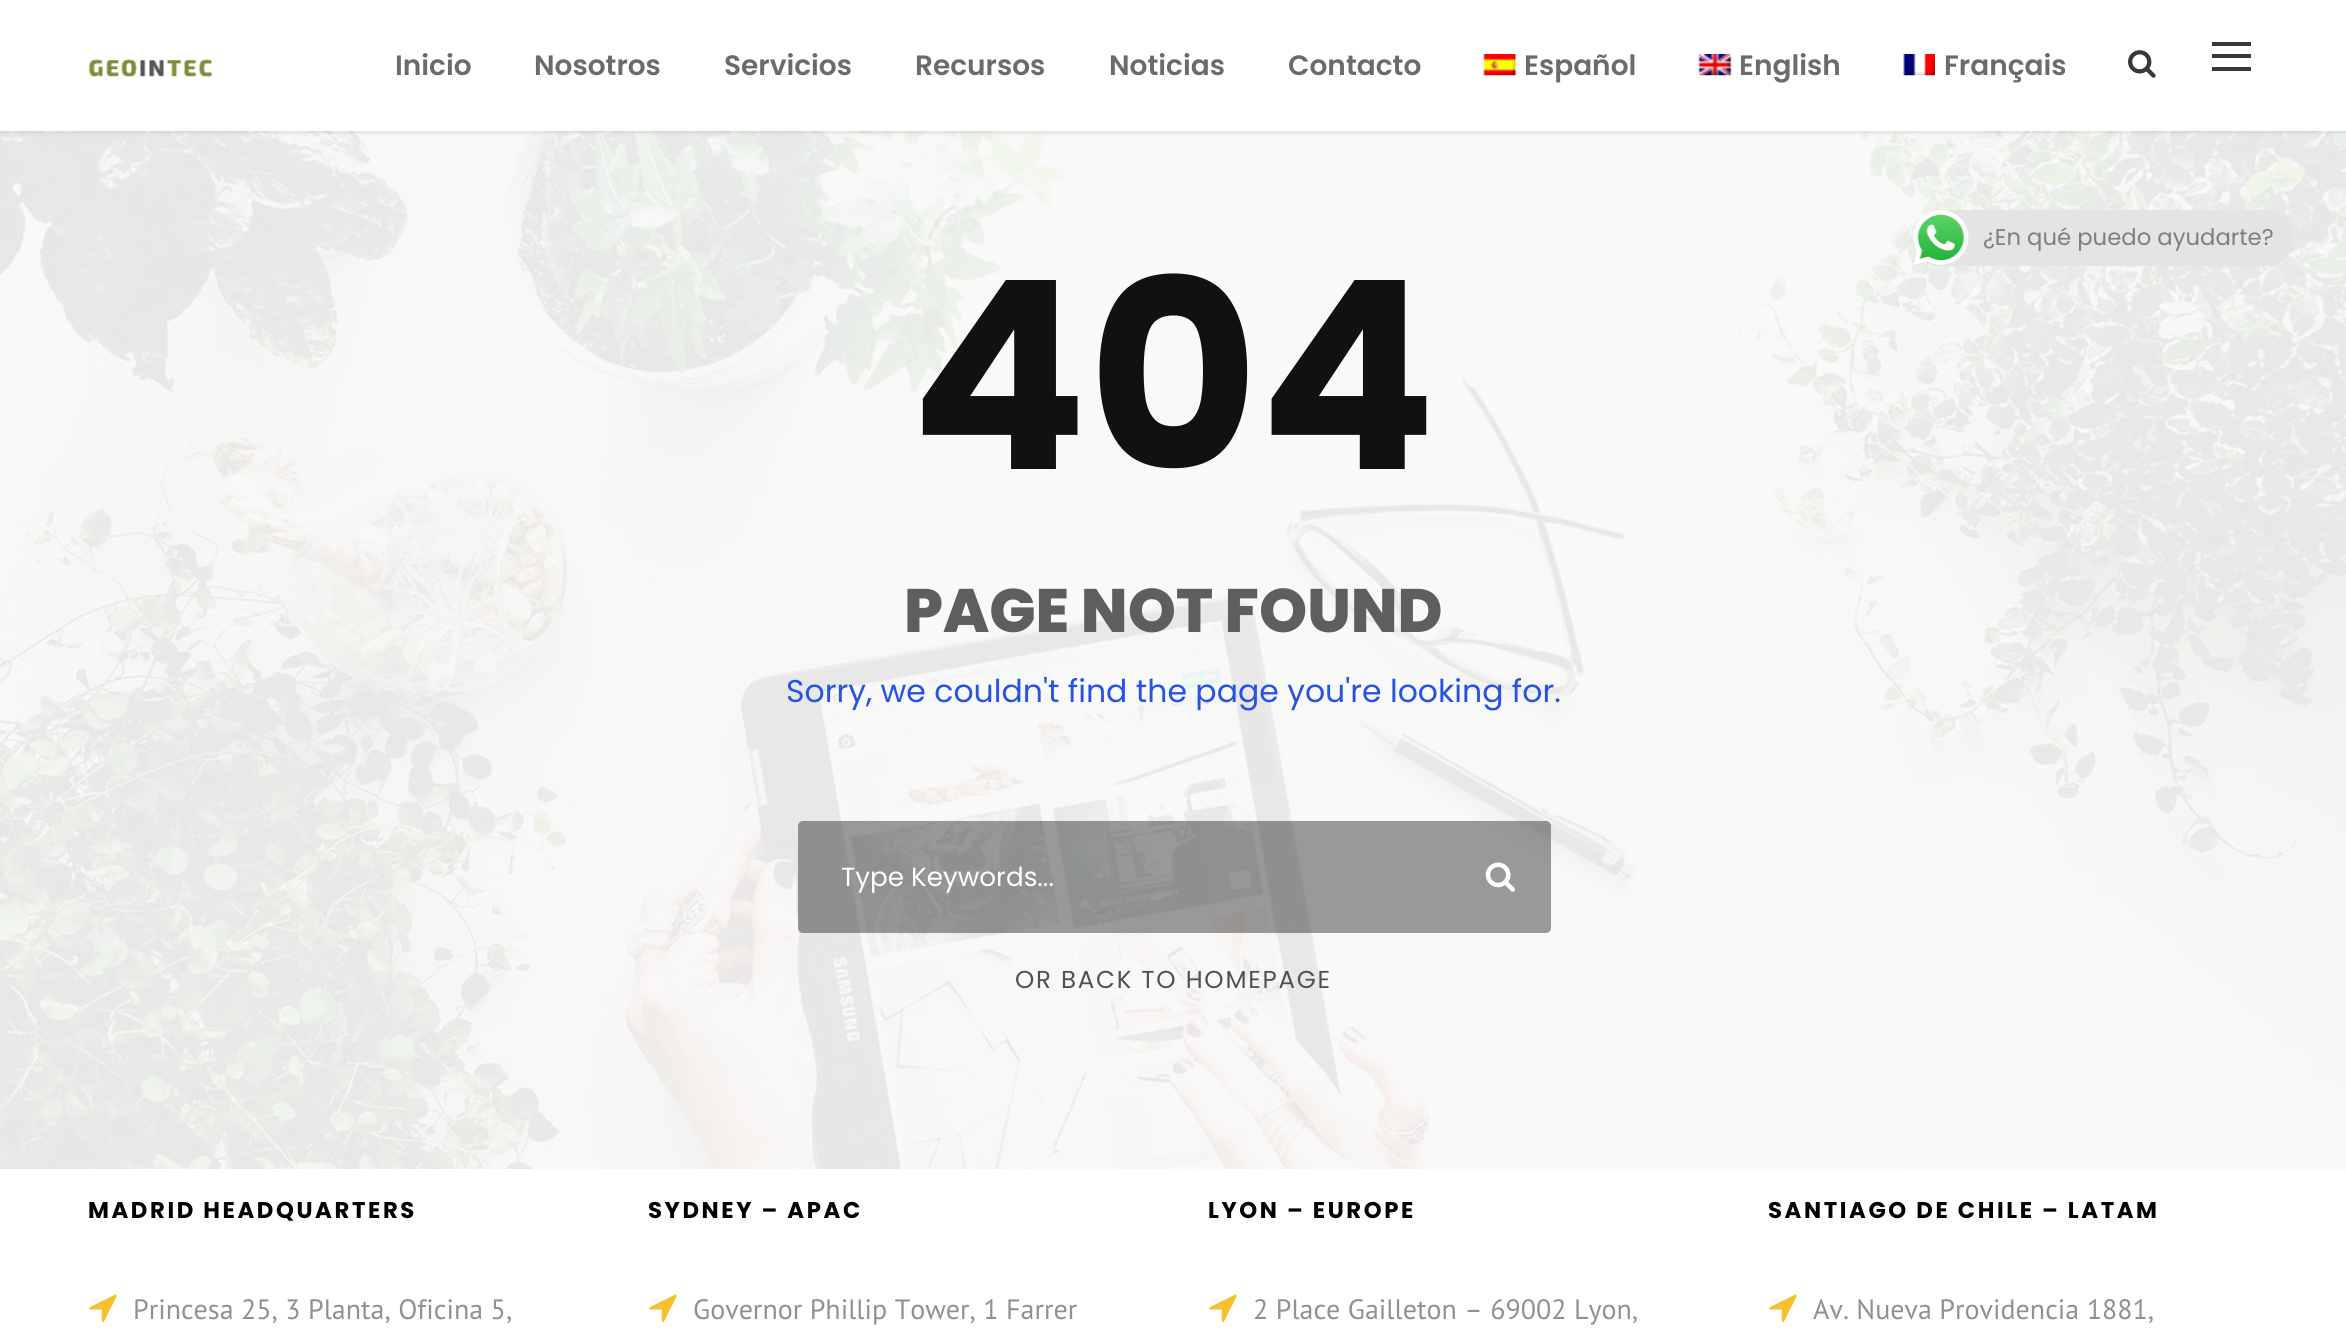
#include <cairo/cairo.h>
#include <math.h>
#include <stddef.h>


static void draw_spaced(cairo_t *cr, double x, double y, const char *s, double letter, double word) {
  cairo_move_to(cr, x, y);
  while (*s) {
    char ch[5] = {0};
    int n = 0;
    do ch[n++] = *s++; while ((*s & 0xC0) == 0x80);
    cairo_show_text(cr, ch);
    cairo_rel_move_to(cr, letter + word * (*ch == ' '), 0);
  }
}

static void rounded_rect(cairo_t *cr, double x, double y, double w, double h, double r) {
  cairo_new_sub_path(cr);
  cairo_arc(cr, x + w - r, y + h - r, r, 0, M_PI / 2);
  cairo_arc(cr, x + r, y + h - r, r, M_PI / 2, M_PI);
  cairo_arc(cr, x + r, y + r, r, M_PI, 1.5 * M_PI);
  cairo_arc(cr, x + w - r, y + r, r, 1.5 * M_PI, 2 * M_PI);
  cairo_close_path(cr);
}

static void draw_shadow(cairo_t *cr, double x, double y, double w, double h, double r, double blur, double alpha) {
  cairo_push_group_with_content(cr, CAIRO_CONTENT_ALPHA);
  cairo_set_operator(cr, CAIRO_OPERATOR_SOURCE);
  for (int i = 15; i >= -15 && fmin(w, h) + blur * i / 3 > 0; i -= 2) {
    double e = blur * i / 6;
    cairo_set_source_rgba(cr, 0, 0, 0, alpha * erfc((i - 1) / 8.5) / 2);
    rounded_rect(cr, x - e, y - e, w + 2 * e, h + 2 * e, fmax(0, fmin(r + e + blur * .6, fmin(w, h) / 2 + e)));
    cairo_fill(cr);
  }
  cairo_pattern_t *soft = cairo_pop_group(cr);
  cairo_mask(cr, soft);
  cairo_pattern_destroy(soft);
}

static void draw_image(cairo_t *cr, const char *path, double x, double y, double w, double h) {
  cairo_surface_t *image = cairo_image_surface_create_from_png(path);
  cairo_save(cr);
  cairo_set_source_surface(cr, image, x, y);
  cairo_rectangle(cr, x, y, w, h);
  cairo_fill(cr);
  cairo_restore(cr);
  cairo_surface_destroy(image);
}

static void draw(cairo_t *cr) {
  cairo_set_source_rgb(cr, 1, 1, 1);
  cairo_paint(cr);
  cairo_set_source_rgb(cr, 249 / 255.0, 249 / 255.0, 249 / 255.0);
  cairo_rectangle(cr, 0, 131, 2346, 1038);
  cairo_fill(cr);
  draw_image(cr, "images/7.png", 0, 131, 2346, 1038);
  cairo_set_source_rgb(cr, 0, 0, 0);
  draw_shadow(cr, 0, 2, 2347, 131, 0, 2, 0.1);
  cairo_set_source_rgb(cr, 1, 1, 1);
  cairo_rectangle(cr, 0, 0, 2346, 131);
  cairo_fill(cr);
  draw_image(cr, "images/1.png", 88, 59, 125, 18);
  draw_image(cr, "images/2.png", 1483, 54, 33, 22);
  draw_image(cr, "images/3.png", 1698, 54, 34, 22);
  draw_image(cr, "images/4.png", 1903, 54, 32, 22);
  draw_image(cr, "images/5.png", 2128, 50, 28, 28);
  cairo_set_source_rgb(cr, 56 / 255.0, 56 / 255.0, 56 / 255.0);
  cairo_rectangle(cr, 2212, 42, 39, 4);
  cairo_fill(cr);
  cairo_rectangle(cr, 2212, 54, 39, 4);
  cairo_fill(cr);
  cairo_rectangle(cr, 2212, 67, 39, 4);
  cairo_fill(cr);
  cairo_set_source_rgb(cr, 228 / 255.0, 228 / 255.0, 228 / 255.0);
  rounded_rect(cr, 1913, 210, 381, 56, 28);
  cairo_fill(cr);
  draw_image(cr, "images/6.png", 1913, 210, 56, 56);
  cairo_set_source_rgba(cr, 10 / 255.0, 10 / 255.0, 10 / 255.0, 0.4);
  rounded_rect(cr, 798, 821, 753, 112, 5);
  cairo_fill(cr);
  draw_image(cr, "images/8.png", 1485, 862, 30, 30);
  draw_image(cr, "images/9.png", 89, 1294, 28, 28);
  draw_image(cr, "images/9.png", 649, 1294, 28, 28);
  draw_image(cr, "images/9.png", 1209, 1294, 28, 28);
  draw_image(cr, "images/9.png", 1769, 1294, 28, 28);
  cairo_select_font_face(cr, "Poppins SemiBold", CAIRO_FONT_SLANT_NORMAL, CAIRO_FONT_WEIGHT_NORMAL);
  cairo_set_font_size(cr, 28);
  cairo_set_source_rgb(cr, 107 / 255.0, 107 / 255.0, 107 / 255.0);
  cairo_move_to(cr, 395, 75);
  cairo_show_text(cr, "Inicio");
  cairo_move_to(cr, 534, 75);
  cairo_show_text(cr, "Nosotros");
  cairo_move_to(cr, 724, 75);
  cairo_show_text(cr, "Servicios");
  cairo_move_to(cr, 915, 75);
  cairo_show_text(cr, "Recursos");
  cairo_move_to(cr, 1109, 75);
  cairo_show_text(cr, "Noticias");
  cairo_move_to(cr, 1288, 75);
  cairo_show_text(cr, "Contacto");
  cairo_move_to(cr, 1524, 75);
  cairo_show_text(cr, "Español");
  cairo_move_to(cr, 1739, 75);
  cairo_show_text(cr, "English");
  cairo_move_to(cr, 1944, 75);
  cairo_show_text(cr, "Français");
  cairo_select_font_face(cr, "Poppins", CAIRO_FONT_SLANT_NORMAL, CAIRO_FONT_WEIGHT_NORMAL);
  cairo_set_font_size(cr, 22.75);
  cairo_set_source_rgb(cr, 127 / 255.0, 125 / 255.0, 125 / 255.0);
  cairo_move_to(cr, 1983, 245);
  cairo_show_text(cr, "¿En qué puedo ayudarte?");
  cairo_select_font_face(cr, "Poppins", CAIRO_FONT_SLANT_NORMAL, CAIRO_FONT_WEIGHT_BOLD);
  cairo_set_font_size(cr, 262.5);
  cairo_set_source_rgb(cr, 17 / 255.0, 17 / 255.0, 17 / 255.0);
  cairo_move_to(cr, 910, 469);
  cairo_show_text(cr, "404");
  cairo_select_font_face(cr, "Poppins ExtraBold", CAIRO_FONT_SLANT_NORMAL, CAIRO_FONT_WEIGHT_NORMAL);
  cairo_set_font_size(cr, 61.25);
  cairo_set_source_rgb(cr, 94 / 255.0, 94 / 255.0, 94 / 255.0);
  cairo_move_to(cr, 904, 632);
  cairo_show_text(cr, "PAGE NOT FOUND");
  cairo_select_font_face(cr, "Poppins", CAIRO_FONT_SLANT_NORMAL, CAIRO_FONT_WEIGHT_NORMAL);
  cairo_set_font_size(cr, 31.5);
  cairo_set_source_rgb(cr, 38 / 255.0, 83 / 255.0, 227 / 255.0);
  cairo_move_to(cr, 786, 702);
  cairo_show_text(cr, "Sorry, we couldn't find the page you're looking for.");
  cairo_save(cr);
  cairo_rectangle(cr, 842, 856, 604, 40);
  cairo_clip(cr);
  cairo_set_font_size(cr, 26.25);
  cairo_set_source_rgb(cr, 1, 1, 1);
  cairo_move_to(cr, 841, 886);
  cairo_show_text(cr, "Type Keywords...");
  cairo_restore(cr);
  cairo_set_font_size(cr, 24.5);
  cairo_set_source_rgb(cr, 81 / 255.0, 81 / 255.0, 81 / 255.0);
  draw_spaced(cr, 1015, 988, "OR BACK TO HOMEPAGE", 1.75, 0);
  cairo_select_font_face(cr, "Poppins", CAIRO_FONT_SLANT_NORMAL, CAIRO_FONT_WEIGHT_BOLD);
  cairo_set_font_size(cr, 22.75);
  cairo_set_source_rgb(cr, 0, 0, 0);
  draw_spaced(cr, 88, 1218, "MADRID HEADQUARTERS", 2.6, 0);
  cairo_select_font_face(cr, "PT Sans", CAIRO_FONT_SLANT_NORMAL, CAIRO_FONT_WEIGHT_NORMAL);
  cairo_set_font_size(cr, 28);
  cairo_set_source_rgb(cr, 145 / 255.0, 145 / 255.0, 145 / 255.0);
  cairo_move_to(cr, 133, 1319);
  cairo_show_text(cr, "Princesa 25, 3 Planta, Oficina 5,");
  cairo_select_font_face(cr, "Poppins", CAIRO_FONT_SLANT_NORMAL, CAIRO_FONT_WEIGHT_BOLD);
  cairo_set_font_size(cr, 22.75);
  cairo_set_source_rgb(cr, 0, 0, 0);
  draw_spaced(cr, 648, 1218, "SYDNEY – APAC", 2.6, 0);
  cairo_select_font_face(cr, "PT Sans", CAIRO_FONT_SLANT_NORMAL, CAIRO_FONT_WEIGHT_NORMAL);
  cairo_set_font_size(cr, 28);
  cairo_set_source_rgb(cr, 145 / 255.0, 145 / 255.0, 145 / 255.0);
  cairo_move_to(cr, 693, 1319);
  cairo_show_text(cr, "Governor Phillip Tower, 1 Farrer");
  cairo_select_font_face(cr, "Poppins", CAIRO_FONT_SLANT_NORMAL, CAIRO_FONT_WEIGHT_BOLD);
  cairo_set_font_size(cr, 22.75);
  cairo_set_source_rgb(cr, 0, 0, 0);
  draw_spaced(cr, 1208, 1218, "LYON – EUROPE", 2.6, 0);
  cairo_select_font_face(cr, "PT Sans", CAIRO_FONT_SLANT_NORMAL, CAIRO_FONT_WEIGHT_NORMAL);
  cairo_set_font_size(cr, 28);
  cairo_set_source_rgb(cr, 145 / 255.0, 145 / 255.0, 145 / 255.0);
  cairo_move_to(cr, 1253, 1319);
  cairo_show_text(cr, "2 Place Gailleton – 69002 Lyon,");
  cairo_select_font_face(cr, "Poppins", CAIRO_FONT_SLANT_NORMAL, CAIRO_FONT_WEIGHT_BOLD);
  cairo_set_font_size(cr, 22.75);
  cairo_set_source_rgb(cr, 0, 0, 0);
  draw_spaced(cr, 1768, 1218, "SANTIAGO DE CHILE – LATAM", 2.6, 0);
  cairo_select_font_face(cr, "PT Sans", CAIRO_FONT_SLANT_NORMAL, CAIRO_FONT_WEIGHT_NORMAL);
  cairo_set_font_size(cr, 28);
  cairo_set_source_rgb(cr, 145 / 255.0, 145 / 255.0, 145 / 255.0);
  cairo_move_to(cr, 1813, 1319);
  cairo_show_text(cr, "Av. Nueva Providencia 1881,");
}

int main(void) {
  cairo_surface_t *surface = cairo_image_surface_create(CAIRO_FORMAT_RGB24, 2346, 1332);
  cairo_t *cr = cairo_create(surface);
  cairo_font_options_t *options = cairo_font_options_create();
  cairo_font_options_set_hint_metrics(options, CAIRO_HINT_METRICS_OFF);
  cairo_font_options_set_hint_style(options, CAIRO_HINT_STYLE_NONE);
  cairo_set_font_options(cr, options);
  cairo_set_miter_limit(cr, 4);
  draw(cr);
  cairo_surface_write_to_png(surface, "out.png");
  cairo_font_options_destroy(options);
  cairo_destroy(cr);
  cairo_surface_destroy(surface);
  return 0;
}
